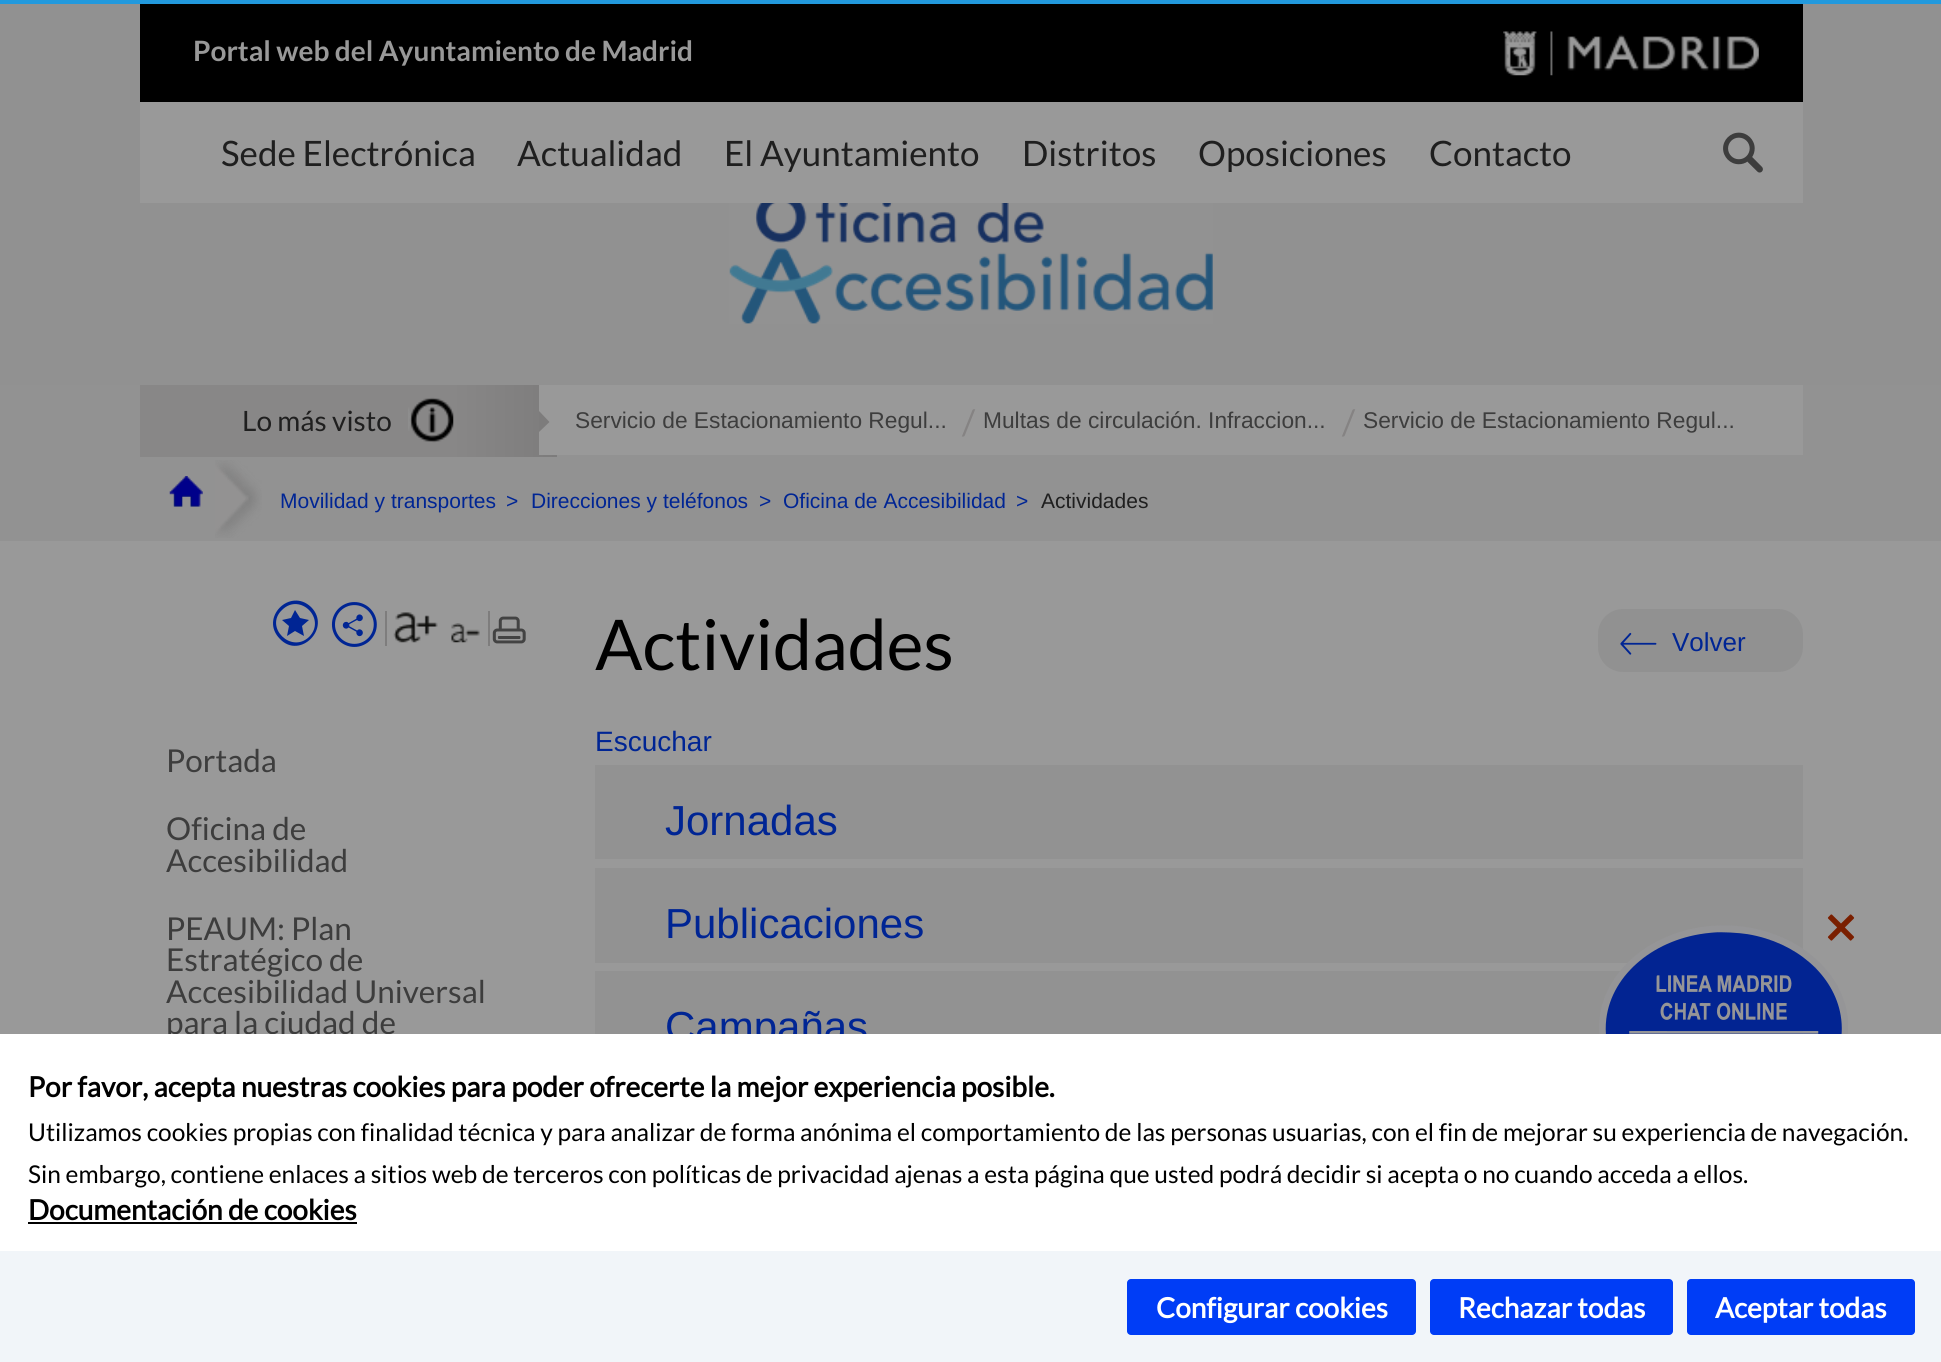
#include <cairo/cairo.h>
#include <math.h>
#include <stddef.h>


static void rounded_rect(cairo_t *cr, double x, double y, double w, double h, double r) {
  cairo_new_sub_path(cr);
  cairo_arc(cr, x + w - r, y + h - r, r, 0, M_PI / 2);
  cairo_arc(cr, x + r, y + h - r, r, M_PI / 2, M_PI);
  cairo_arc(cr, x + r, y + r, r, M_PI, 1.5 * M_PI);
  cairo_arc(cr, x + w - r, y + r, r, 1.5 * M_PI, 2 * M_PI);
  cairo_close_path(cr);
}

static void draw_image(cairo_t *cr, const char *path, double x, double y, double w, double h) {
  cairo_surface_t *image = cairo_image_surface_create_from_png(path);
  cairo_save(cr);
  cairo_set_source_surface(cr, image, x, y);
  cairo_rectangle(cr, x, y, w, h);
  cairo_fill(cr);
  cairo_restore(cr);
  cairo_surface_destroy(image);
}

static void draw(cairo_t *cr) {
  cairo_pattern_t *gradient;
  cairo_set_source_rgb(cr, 153 / 255.0, 153 / 255.0, 153 / 255.0);
  cairo_paint(cr);
  cairo_set_source_rgb(cr, 34 / 255.0, 153 / 255.0, 221 / 255.0);
  cairo_rectangle(cr, 0, 0, 1941, 4);
  cairo_fill(cr);
  cairo_set_source_rgb(cr, 145 / 255.0, 145 / 255.0, 145 / 255.0);
  cairo_rectangle(cr, 0, 4, 1941, 381);
  cairo_fill(cr);
  draw_image(cr, "images/1.png", 729, 203, 484, 121);
  cairo_set_source_rgb(cr, 0, 0, 0);
  cairo_rectangle(cr, 140, 4, 1663, 98);
  cairo_fill(cr);
  draw_image(cr, "images/2.png", 1503, 31, 256, 45);
  cairo_set_source_rgb(cr, 153 / 255.0, 153 / 255.0, 153 / 255.0);
  cairo_rectangle(cr, 140, 102, 1663, 101);
  cairo_fill(cr);
  draw_image(cr, "images/3.png", 1723, 132, 40, 41);
  cairo_set_source_rgb(cr, 146 / 255.0, 146 / 255.0, 146 / 255.0);
  cairo_rectangle(cr, 0, 385, 1941, 156);
  cairo_fill(cr);
  gradient = cairo_pattern_create_linear(140, 421, 557, 421);
  cairo_pattern_add_color_stop_rgba(gradient, 0, 136 / 255.0, 135 / 255.0, 135 / 255.0, 1);
  cairo_pattern_add_color_stop_rgba(gradient, 0.75, 136 / 255.0, 135 / 255.0, 135 / 255.0, 1);
  cairo_pattern_add_color_stop_rgba(gradient, 1, 125 / 255.0, 124 / 255.0, 124 / 255.0, 1);
  cairo_set_source(cr, gradient);
  cairo_pattern_destroy(gradient);
  cairo_rectangle(cr, 140, 385, 417, 72);
  cairo_fill(cr);
  draw_image(cr, "images/4.png", 408, 397, 46, 46);
  cairo_set_source_rgb(cr, 153 / 255.0, 153 / 255.0, 153 / 255.0);
  cairo_rectangle(cr, 539, 385, 1264, 70);
  cairo_fill(cr);
  cairo_set_source_rgb(cr, 125 / 255.0, 124 / 255.0, 124 / 255.0);
  cairo_new_path(cr);
  cairo_move_to(cr, 539, 432);
  cairo_line_to(cr, 539, 411);
  cairo_line_to(cr, 549.5, 422);
  cairo_close_path(cr);
  cairo_fill(cr);
  draw_image(cr, "images/5.png", 169, 476, 34, 31);
  draw_image(cr, "images/6.png", 215, 460, 47, 78);
  cairo_set_source_rgb(cr, 0, 37 / 255.0, 148 / 255.0);
  cairo_new_path(cr);
  cairo_move_to(cr, 282, 610);
  cairo_curve_to(cr, 300, 592, 327, 619, 309, 637);
  cairo_curve_to(cr, 291, 654, 264, 627, 282, 610);
  cairo_close_path(cr);
  cairo_move_to(cr, 311, 607);
  cairo_curve_to(cr, 290, 587, 259, 618, 280, 639);
  cairo_curve_to(cr, 300, 660, 332, 628, 311, 607);
  cairo_close_path(cr);
  cairo_move_to(cr, 295, 610);
  cairo_line_to(cr, 300, 618);
  cairo_line_to(cr, 309, 620);
  cairo_line_to(cr, 302, 626);
  cairo_line_to(cr, 304, 636);
  cairo_line_to(cr, 295, 631);
  cairo_line_to(cr, 287, 636);
  cairo_line_to(cr, 289, 626);
  cairo_line_to(cr, 282, 620);
  cairo_line_to(cr, 291, 618);
  cairo_close_path(cr);
  cairo_fill(cr);
  draw_image(cr, "images/7.png", 331, 602, 46, 45);
  cairo_set_source_rgb(cr, 126 / 255.0, 125 / 255.0, 125 / 255.0);
  cairo_rectangle(cr, 385, 611, 2, 35);
  cairo_fill(cr);
  draw_image(cr, "images/8.png", 393, 612, 45, 31);
  draw_image(cr, "images/9.png", 451, 623, 29, 20);
  cairo_rectangle(cr, 488, 611, 2, 35);
  cairo_fill(cr);
  draw_image(cr, "images/10.png", 492, 616, 34, 28);
  cairo_set_source_rgb(cr, 145 / 255.0, 145 / 255.0, 145 / 255.0);
  rounded_rect(cr, 1598, 609, 205, 63, 25);
  cairo_fill(cr);
  draw_image(cr, "images/11.png", 1620, 632, 37, 23);
  cairo_set_source_rgb(cr, 146 / 255.0, 146 / 255.0, 146 / 255.0);
  cairo_rectangle(cr, 595, 765, 1208, 94);
  cairo_fill(cr);
  cairo_rectangle(cr, 595, 868, 1208, 95);
  cairo_fill(cr);
  cairo_rectangle(cr, 595, 971, 1208, 63);
  cairo_fill(cr);
  draw_image(cr, "images/13.png", 1599, 925, 249, 109);
  draw_image(cr, "images/12.png", 1827, 914, 28, 27);
  cairo_set_source_rgb(cr, 241 / 255.0, 245 / 255.0, 249 / 255.0);
  cairo_rectangle(cr, 0, 1251, 1941, 111);
  cairo_fill(cr);
  cairo_set_source_rgb(cr, 0, 61 / 255.0, 246 / 255.0);
  rounded_rect(cr, 1127, 1279, 289, 56, 4);
  cairo_fill(cr);
  rounded_rect(cr, 1430, 1279, 243, 56, 4);
  cairo_fill(cr);
  rounded_rect(cr, 1687, 1279, 228, 56, 4);
  cairo_fill(cr);
  cairo_select_font_face(cr, "Lato", CAIRO_FONT_SLANT_NORMAL, CAIRO_FONT_WEIGHT_BOLD);
  cairo_set_font_size(cr, 28);
  cairo_set_source_rgb(cr, 153 / 255.0, 153 / 255.0, 153 / 255.0);
  cairo_move_to(cr, 193, 61);
  cairo_show_text(cr, "Portal web del Ayuntamiento de Madrid");
  cairo_select_font_face(cr, "Lato", CAIRO_FONT_SLANT_NORMAL, CAIRO_FONT_WEIGHT_NORMAL);
  cairo_set_font_size(cr, 35);
  cairo_set_source_rgb(cr, 31 / 255.0, 31 / 255.0, 31 / 255.0);
  cairo_move_to(cr, 221, 166);
  cairo_show_text(cr, "Sede Electrónica");
  cairo_move_to(cr, 517, 166);
  cairo_show_text(cr, "Actualidad");
  cairo_move_to(cr, 724, 166);
  cairo_show_text(cr, "El Ayuntamiento");
  cairo_move_to(cr, 1022, 166);
  cairo_show_text(cr, "Distritos");
  cairo_move_to(cr, 1198, 166);
  cairo_show_text(cr, "Oposiciones");
  cairo_move_to(cr, 1429, 166);
  cairo_show_text(cr, "Contacto");
  cairo_set_font_size(cr, 28);
  cairo_move_to(cr, 242, 431);
  cairo_show_text(cr, "Lo más visto");
  cairo_select_font_face(cr, "Liberation Sans", CAIRO_FONT_SLANT_NORMAL, CAIRO_FONT_WEIGHT_NORMAL);
  cairo_set_font_size(cr, 22.75);
  cairo_set_source_rgb(cr, 61 / 255.0, 61 / 255.0, 61 / 255.0);
  cairo_move_to(cr, 575, 428);
  cairo_show_text(cr, "Servicio de Estacionamiento Regul...");
  cairo_select_font_face(cr, "Lato", CAIRO_FONT_SLANT_NORMAL, CAIRO_FONT_WEIGHT_NORMAL);
  cairo_set_font_size(cr, 35);
  cairo_set_source_rgb(cr, 133 / 255.0, 131 / 255.0, 131 / 255.0);
  cairo_move_to(cr, 962, 435);
  cairo_show_text(cr, "/");
  cairo_select_font_face(cr, "Liberation Sans", CAIRO_FONT_SLANT_NORMAL, CAIRO_FONT_WEIGHT_NORMAL);
  cairo_set_font_size(cr, 22.75);
  cairo_set_source_rgb(cr, 61 / 255.0, 61 / 255.0, 61 / 255.0);
  cairo_move_to(cr, 983, 428);
  cairo_show_text(cr, "Multas de circulación. Infraccion...");
  cairo_select_font_face(cr, "Lato", CAIRO_FONT_SLANT_NORMAL, CAIRO_FONT_WEIGHT_NORMAL);
  cairo_set_font_size(cr, 35);
  cairo_set_source_rgb(cr, 133 / 255.0, 131 / 255.0, 131 / 255.0);
  cairo_move_to(cr, 1342, 435);
  cairo_show_text(cr, "/");
  cairo_select_font_face(cr, "Liberation Sans", CAIRO_FONT_SLANT_NORMAL, CAIRO_FONT_WEIGHT_NORMAL);
  cairo_set_font_size(cr, 22.75);
  cairo_set_source_rgb(cr, 61 / 255.0, 61 / 255.0, 61 / 255.0);
  cairo_move_to(cr, 1363, 428);
  cairo_show_text(cr, "Servicio de Estacionamiento Regul...");
  cairo_set_font_size(cr, 21);
  cairo_set_source_rgb(cr, 0, 37 / 255.0, 148 / 255.0);
  cairo_move_to(cr, 280, 508);
  cairo_show_text(cr, "Movilidad y transportes");
  cairo_move_to(cr, 506, 508);
  cairo_show_text(cr, ">");
  cairo_move_to(cr, 531, 508);
  cairo_show_text(cr, "Direcciones y teléfonos");
  cairo_move_to(cr, 759, 508);
  cairo_show_text(cr, ">");
  cairo_move_to(cr, 783, 508);
  cairo_show_text(cr, "Oficina de Accesibilidad");
  cairo_move_to(cr, 1016, 508);
  cairo_show_text(cr, ">");
  cairo_set_source_rgb(cr, 31 / 255.0, 31 / 255.0, 31 / 255.0);
  cairo_move_to(cr, 1041, 508);
  cairo_show_text(cr, "Actividades");
  cairo_select_font_face(cr, "Lato", CAIRO_FONT_SLANT_NORMAL, CAIRO_FONT_WEIGHT_NORMAL);
  cairo_set_font_size(cr, 31.5);
  cairo_set_source_rgb(cr, 61 / 255.0, 61 / 255.0, 61 / 255.0);
  cairo_move_to(cr, 166, 772);
  cairo_show_text(cr, "Portada");
  cairo_move_to(cr, 166, 840);
  cairo_show_text(cr, "Oficina de");
  cairo_move_to(cr, 166, 872);
  cairo_show_text(cr, "Accesibilidad");
  cairo_move_to(cr, 166, 940);
  cairo_show_text(cr, "PEAUM: Plan");
  cairo_move_to(cr, 166, 971);
  cairo_show_text(cr, "Estratégico de");
  cairo_move_to(cr, 166, 1003);
  cairo_show_text(cr, "Accesibilidad Universal");
  cairo_move_to(cr, 166, 1034);
  cairo_show_text(cr, "para la ciudad de");
  cairo_set_font_size(cr, 70);
  cairo_set_source_rgb(cr, 0, 0, 0);
  cairo_move_to(cr, 595, 670);
  cairo_show_text(cr, "Actividades");
  cairo_select_font_face(cr, "Liberation Sans", CAIRO_FONT_SLANT_NORMAL, CAIRO_FONT_WEIGHT_NORMAL);
  cairo_set_font_size(cr, 26);
  cairo_set_source_rgb(cr, 0, 37 / 255.0, 148 / 255.0);
  cairo_move_to(cr, 1672, 651);
  cairo_show_text(cr, "Volver");
  cairo_set_font_size(cr, 28);
  cairo_move_to(cr, 595, 751);
  cairo_show_text(cr, "Escuchar");
  cairo_set_font_size(cr, 42);
  cairo_move_to(cr, 665, 835);
  cairo_show_text(cr, "Jornadas");
  cairo_move_to(cr, 665, 938);
  cairo_show_text(cr, "Publicaciones");
  cairo_move_to(cr, 665, 1041);
  cairo_show_text(cr, "Campañas");
  cairo_set_source_rgb(cr, 1, 1, 1);
  cairo_rectangle(cr, 0, 1034, 1941, 217);
  cairo_fill(cr);
  cairo_select_font_face(cr, "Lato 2", CAIRO_FONT_SLANT_NORMAL, CAIRO_FONT_WEIGHT_BOLD);
  cairo_set_font_size(cr, 28);
  cairo_set_source_rgb(cr, 0, 0, 0);
  cairo_move_to(cr, 28, 1097);
  cairo_show_text(cr, "Por favor, acepta nuestras cookies para poder ofrecerte la mejor experiencia posible.");
  cairo_select_font_face(cr, "Lato", CAIRO_FONT_SLANT_NORMAL, CAIRO_FONT_WEIGHT_NORMAL);
  cairo_set_font_size(cr, 24.5);
  cairo_move_to(cr, 28, 1141);
  cairo_show_text(cr, "Utilizamos cookies propias con finalidad técnica y para analizar de forma anónima el comportamiento de las personas usuarias, con el fin de mejorar su experiencia de navegación.");
  cairo_move_to(cr, 28, 1183);
  cairo_show_text(cr, "Sin embargo, contiene enlaces a sitios web de terceros con políticas de privacidad ajenas a esta página que usted podrá decidir si acepta o no cuando acceda a ellos.");
  cairo_select_font_face(cr, "Lato 2", CAIRO_FONT_SLANT_NORMAL, CAIRO_FONT_WEIGHT_BOLD);
  cairo_set_font_size(cr, 28);
  cairo_move_to(cr, 28, 1220);
  cairo_show_text(cr, "Documentación de cookies");
  cairo_rectangle(cr, 28, 1222, 329, 2);
  cairo_fill(cr);
  cairo_set_source_rgb(cr, 1, 1, 1);
  cairo_move_to(cr, 1156, 1318);
  cairo_show_text(cr, "Configurar cookies");
  cairo_move_to(cr, 1458, 1318);
  cairo_show_text(cr, "Rechazar todas");
  cairo_move_to(cr, 1715, 1318);
  cairo_show_text(cr, "Aceptar todas");
}

int main(void) {
  cairo_surface_t *surface = cairo_image_surface_create(CAIRO_FORMAT_RGB24, 1941, 1362);
  cairo_t *cr = cairo_create(surface);
  cairo_font_options_t *options = cairo_font_options_create();
  cairo_font_options_set_hint_metrics(options, CAIRO_HINT_METRICS_OFF);
  cairo_font_options_set_hint_style(options, CAIRO_HINT_STYLE_NONE);
  cairo_set_font_options(cr, options);
  cairo_set_miter_limit(cr, 4);
  draw(cr);
  cairo_surface_write_to_png(surface, "out.png");
  cairo_font_options_destroy(options);
  cairo_destroy(cr);
  cairo_surface_destroy(surface);
  return 0;
}
